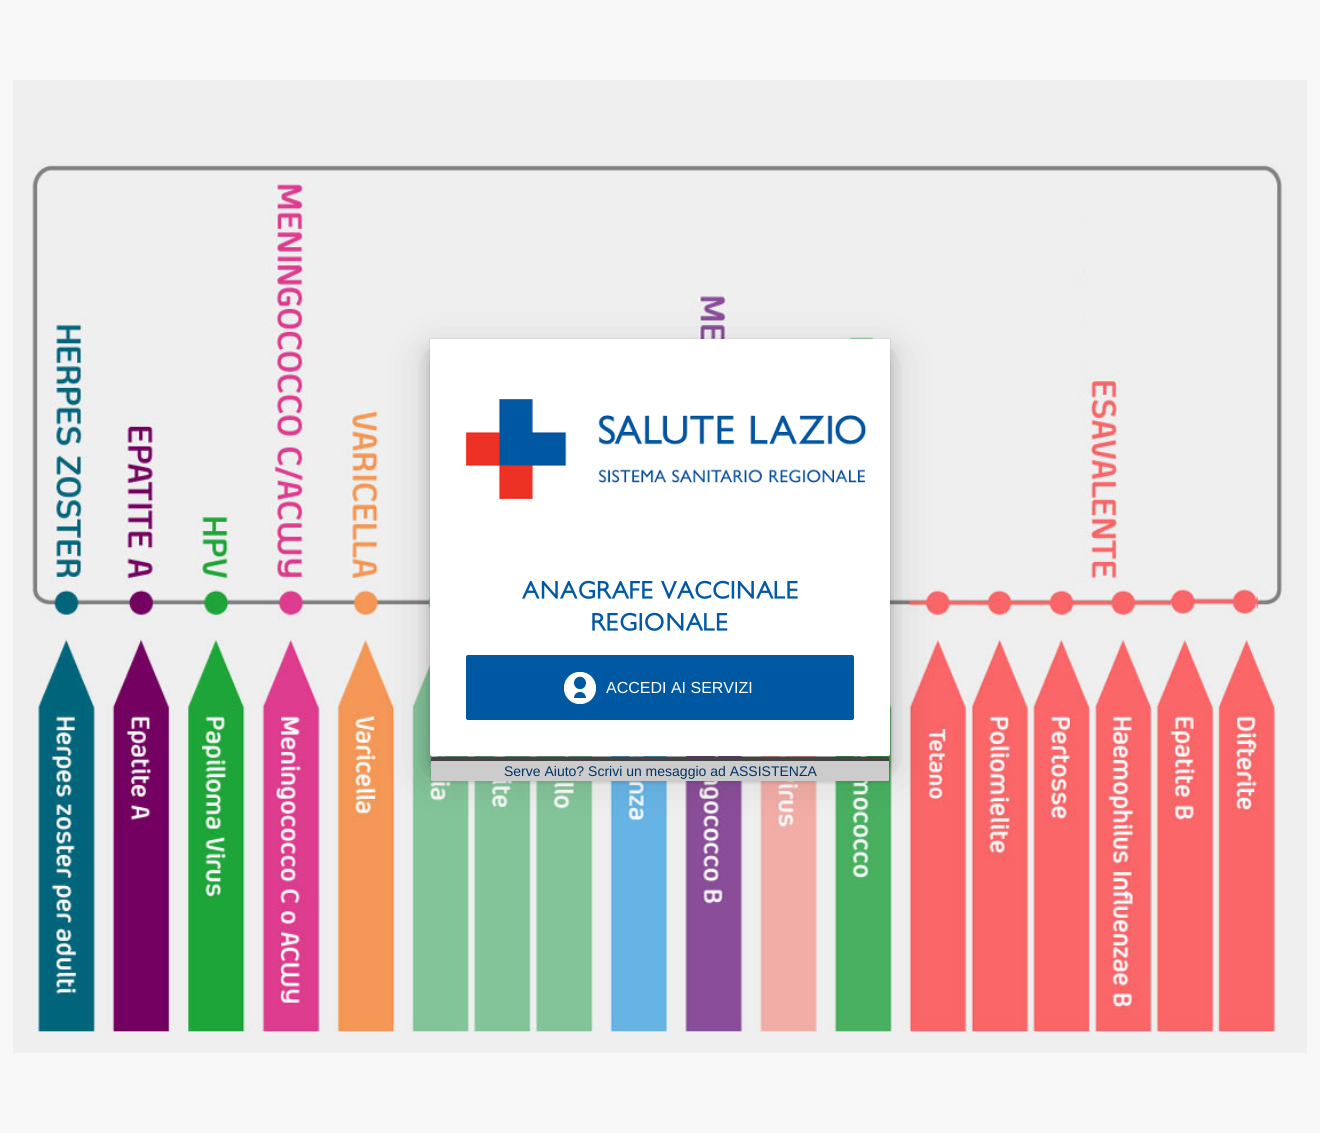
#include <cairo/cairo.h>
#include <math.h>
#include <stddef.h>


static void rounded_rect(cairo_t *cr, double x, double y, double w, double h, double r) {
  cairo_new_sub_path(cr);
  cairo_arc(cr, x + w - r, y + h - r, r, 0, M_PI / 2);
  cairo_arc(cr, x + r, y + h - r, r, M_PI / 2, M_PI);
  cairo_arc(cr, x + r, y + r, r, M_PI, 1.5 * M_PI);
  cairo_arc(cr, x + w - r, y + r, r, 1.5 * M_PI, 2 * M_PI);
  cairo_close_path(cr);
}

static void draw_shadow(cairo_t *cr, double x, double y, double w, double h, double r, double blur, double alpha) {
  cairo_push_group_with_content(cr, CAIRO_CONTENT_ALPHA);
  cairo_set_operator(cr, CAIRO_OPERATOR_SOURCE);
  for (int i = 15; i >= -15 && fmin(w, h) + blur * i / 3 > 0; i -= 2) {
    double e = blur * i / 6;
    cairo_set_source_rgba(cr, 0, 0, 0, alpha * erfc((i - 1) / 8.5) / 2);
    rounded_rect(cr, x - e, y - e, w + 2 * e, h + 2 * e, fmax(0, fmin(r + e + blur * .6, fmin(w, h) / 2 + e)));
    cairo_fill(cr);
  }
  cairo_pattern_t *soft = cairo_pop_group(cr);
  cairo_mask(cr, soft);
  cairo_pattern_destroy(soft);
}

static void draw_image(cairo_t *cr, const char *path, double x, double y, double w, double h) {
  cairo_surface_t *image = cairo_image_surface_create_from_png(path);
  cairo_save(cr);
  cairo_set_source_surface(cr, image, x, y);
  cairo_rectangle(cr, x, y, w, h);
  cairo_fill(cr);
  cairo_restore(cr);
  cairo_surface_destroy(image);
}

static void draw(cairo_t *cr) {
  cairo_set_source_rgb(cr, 248 / 255.0, 248 / 255.0, 248 / 255.0);
  cairo_paint(cr);
  draw_image(cr, "images/1.png", 13, 80, 1294, 973);
  cairo_rectangle(cr, 429.5, 338.5, 461, 418);
  cairo_set_source_rgba(cr, 0, 0, 0, 0.05);
  cairo_set_line_width(cr, 1);
  cairo_stroke(cr);
  cairo_set_source_rgb(cr, 0, 0, 0);
  draw_shadow(cr, 430, 355, 460, 417, 2, 24, 0.15);
  draw_shadow(cr, 430, 351, 460, 417, 2, 8, 0.2);
  cairo_set_source_rgb(cr, 1, 1, 1);
  rounded_rect(cr, 430, 339, 460, 417, 2);
  cairo_fill(cr);
  draw_image(cr, "images/2.png", 466, 399, 400, 100);
  draw_image(cr, "images/3.png", 522, 580, 276, 19);
  draw_image(cr, "images/4.png", 592, 612, 136, 19);
  cairo_set_source_rgb(cr, 0, 88 / 255.0, 163 / 255.0);
  rounded_rect(cr, 466, 655, 388, 65, 2);
  cairo_fill(cr);
  draw_image(cr, "images/5.png", 564, 672, 32, 32);
  cairo_set_source_rgb(cr, 0, 0, 0);
  draw_shadow(cr, 430, 758, 460, 26, 2, 1, 0.05);
  cairo_rectangle(cr, 430.5, 756.5, 459, 25);
  cairo_set_source_rgba(cr, 0, 0, 0, 0.05);
  cairo_stroke(cr);
  cairo_set_source_rgb(cr, 204 / 255.0, 204 / 255.0, 204 / 255.0);
  rounded_rect(cr, 431, 757, 458, 24, 1);
  cairo_fill(cr);
  cairo_set_source_rgb(cr, 68 / 255.0, 68 / 255.0, 68 / 255.0);
  cairo_new_path(cr);
  cairo_move_to(cr, 432, 757);
  cairo_line_to(cr, 888, 757);
  cairo_curve_to(cr, 888.5, 757, 889, 757.5, 889, 758);
  cairo_line_to(cr, 889, 761);
  cairo_line_to(cr, 431, 761);
  cairo_line_to(cr, 431, 758);
  cairo_curve_to(cr, 431, 757.5, 431.5, 757, 432, 757);
  cairo_close_path(cr);
  cairo_fill(cr);
  cairo_select_font_face(cr, "Liberation Sans", CAIRO_FONT_SLANT_NORMAL, CAIRO_FONT_WEIGHT_NORMAL);
  cairo_set_font_size(cr, 16);
  cairo_set_source_rgb(cr, 1, 1, 1);
  cairo_move_to(cr, 606, 693);
  cairo_show_text(cr, "ACCEDI AI SERVIZI");
  cairo_set_font_size(cr, 14);
  cairo_set_source_rgb(cr, 3 / 255.0, 51 / 255.0, 102 / 255.0);
  cairo_move_to(cr, 504, 776);
  cairo_show_text(cr, "Serve Aiuto? Scrivi un mesaggio ad ASSISTENZA");
}

int main(void) {
  cairo_surface_t *surface = cairo_image_surface_create(CAIRO_FORMAT_RGB24, 1320, 1133);
  cairo_t *cr = cairo_create(surface);
  cairo_font_options_t *options = cairo_font_options_create();
  cairo_font_options_set_hint_metrics(options, CAIRO_HINT_METRICS_OFF);
  cairo_font_options_set_hint_style(options, CAIRO_HINT_STYLE_NONE);
  cairo_set_font_options(cr, options);
  cairo_set_miter_limit(cr, 4);
  draw(cr);
  cairo_surface_write_to_png(surface, "out.png");
  cairo_font_options_destroy(options);
  cairo_destroy(cr);
  cairo_surface_destroy(surface);
  return 0;
}
